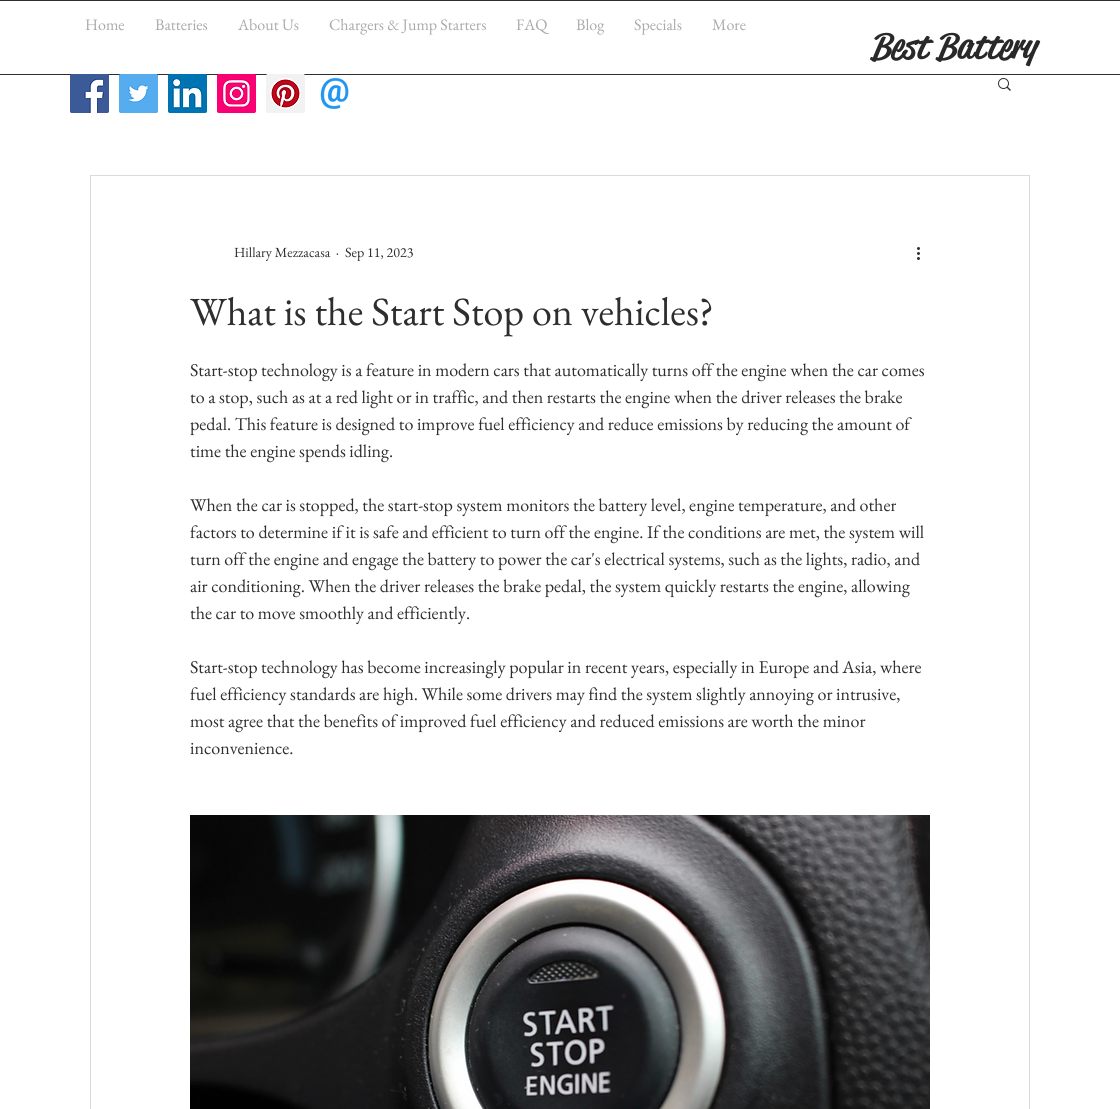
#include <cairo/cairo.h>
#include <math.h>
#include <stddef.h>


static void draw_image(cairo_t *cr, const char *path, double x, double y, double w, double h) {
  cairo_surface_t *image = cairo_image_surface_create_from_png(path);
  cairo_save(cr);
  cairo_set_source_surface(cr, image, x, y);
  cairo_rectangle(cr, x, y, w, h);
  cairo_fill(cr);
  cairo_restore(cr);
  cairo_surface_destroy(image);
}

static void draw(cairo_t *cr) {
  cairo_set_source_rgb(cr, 1, 1, 1);
  cairo_paint(cr);
  cairo_set_source_rgb(cr, 48 / 255.0, 45 / 255.0, 45 / 255.0);
  cairo_rectangle(cr, 0, 0, 1120, 1);
  cairo_fill(cr);
  cairo_rectangle(cr, 0, 74, 1120, 1);
  cairo_fill(cr);
  draw_image(cr, "images/1.png", 70, 74, 39, 39);
  draw_image(cr, "images/2.png", 119, 74, 39, 39);
  draw_image(cr, "images/3.png", 168, 74, 39, 39);
  draw_image(cr, "images/4.png", 217, 74, 39, 39);
  draw_image(cr, "images/5.png", 266, 74, 39, 39);
  draw_image(cr, "images/6.png", 320, 78, 29, 31);
  draw_image(cr, "images/7.png", 998, 78, 13, 13);
  cairo_rectangle(cr, 90.5, 175.5, 939, 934);
  cairo_set_source_rgb(cr, 218 / 255.0, 218 / 255.0, 218 / 255.0);
  cairo_set_line_width(cr, 1);
  cairo_stroke(cr);
  draw_image(cr, "images/8.png", 917, 247, 3, 13);
  draw_image(cr, "images/9.png", 190, 815, 740, 294);
  cairo_select_font_face(cr, "EB Garamond", CAIRO_FONT_SLANT_NORMAL, CAIRO_FONT_WEIGHT_NORMAL);
  cairo_set_font_size(cr, 16);
  cairo_set_source_rgb(cr, 170 / 255.0, 170 / 255.0, 170 / 255.0);
  cairo_move_to(cr, 85, 30);
  cairo_show_text(cr, "Home");
  cairo_move_to(cr, 155, 30);
  cairo_show_text(cr, "Batteries");
  cairo_move_to(cr, 238, 30);
  cairo_show_text(cr, "About Us");
  cairo_move_to(cr, 329, 30);
  cairo_show_text(cr, "Chargers & Jump Starters");
  cairo_move_to(cr, 516, 30);
  cairo_show_text(cr, "FAQ");
  cairo_move_to(cr, 576, 30);
  cairo_show_text(cr, "Blog");
  cairo_move_to(cr, 634, 30);
  cairo_show_text(cr, "Specials");
  cairo_move_to(cr, 712, 30);
  cairo_show_text(cr, "More");
  cairo_select_font_face(cr, "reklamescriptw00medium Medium", CAIRO_FONT_SLANT_ITALIC, CAIRO_FONT_WEIGHT_NORMAL);
  cairo_set_font_size(cr, 35);
  cairo_set_source_rgb(cr, 41 / 255.0, 41 / 255.0, 41 / 255.0);
  cairo_move_to(cr, 870, 58);
  cairo_show_text(cr, "Best Battery");
  cairo_select_font_face(cr, "EB Garamond", CAIRO_FONT_SLANT_NORMAL, CAIRO_FONT_WEIGHT_NORMAL);
  cairo_set_font_size(cr, 14);
  cairo_set_source_rgb(cr, 48 / 255.0, 45 / 255.0, 45 / 255.0);
  cairo_move_to(cr, 234, 257);
  cairo_show_text(cr, "Hillary Mezzacasa");
  cairo_move_to(cr, 336, 257);
  cairo_show_text(cr, "·");
  cairo_move_to(cr, 345, 257);
  cairo_show_text(cr, "Sep 11, 2023");
  cairo_set_font_size(cr, 40);
  cairo_move_to(cr, 190, 325);
  cairo_show_text(cr, "What is the Start Stop on vehicles?");
  cairo_set_font_size(cr, 18);
  cairo_move_to(cr, 190, 376);
  cairo_show_text(cr, "Start-stop technology is a feature in modern cars that automatically turns off the engine when the car comes");
  cairo_move_to(cr, 190, 403);
  cairo_show_text(cr, "to a stop, such as at a red light or in traffic, and then restarts the engine when the driver releases the brake");
  cairo_move_to(cr, 190, 430);
  cairo_show_text(cr, "pedal. This feature is designed to improve fuel efficiency and reduce emissions by reducing the amount of");
  cairo_move_to(cr, 190, 457);
  cairo_show_text(cr, "time the engine spends idling.");
  cairo_move_to(cr, 190, 511);
  cairo_show_text(cr, "When the car is stopped, the start-stop system monitors the battery level, engine temperature, and other");
  cairo_move_to(cr, 190, 538);
  cairo_show_text(cr, "factors to determine if it is safe and efficient to turn off the engine. If the conditions are met, the system will");
  cairo_move_to(cr, 190, 565);
  cairo_show_text(cr, "turn off the engine and engage the battery to power the car's electrical systems, such as the lights, radio, and");
  cairo_move_to(cr, 190, 592);
  cairo_show_text(cr, "air conditioning. When the driver releases the brake pedal, the system quickly restarts the engine, allowing");
  cairo_move_to(cr, 190, 619);
  cairo_show_text(cr, "the car to move smoothly and efficiently.");
  cairo_move_to(cr, 190, 673);
  cairo_show_text(cr, "Start-stop technology has become increasingly popular in recent years, especially in Europe and Asia, where");
  cairo_move_to(cr, 190, 700);
  cairo_show_text(cr, "fuel efficiency standards are high. While some drivers may find the system slightly annoying or intrusive,");
  cairo_move_to(cr, 190, 727);
  cairo_show_text(cr, "most agree that the benefits of improved fuel efficiency and reduced emissions are worth the minor");
  cairo_move_to(cr, 190, 754);
  cairo_show_text(cr, "inconvenience.");
}

int main(void) {
  cairo_surface_t *surface = cairo_image_surface_create(CAIRO_FORMAT_RGB24, 1120, 1109);
  cairo_t *cr = cairo_create(surface);
  cairo_font_options_t *options = cairo_font_options_create();
  cairo_font_options_set_hint_metrics(options, CAIRO_HINT_METRICS_OFF);
  cairo_font_options_set_hint_style(options, CAIRO_HINT_STYLE_NONE);
  cairo_set_font_options(cr, options);
  cairo_set_miter_limit(cr, 4);
  draw(cr);
  cairo_surface_write_to_png(surface, "out.png");
  cairo_font_options_destroy(options);
  cairo_destroy(cr);
  cairo_surface_destroy(surface);
  return 0;
}
